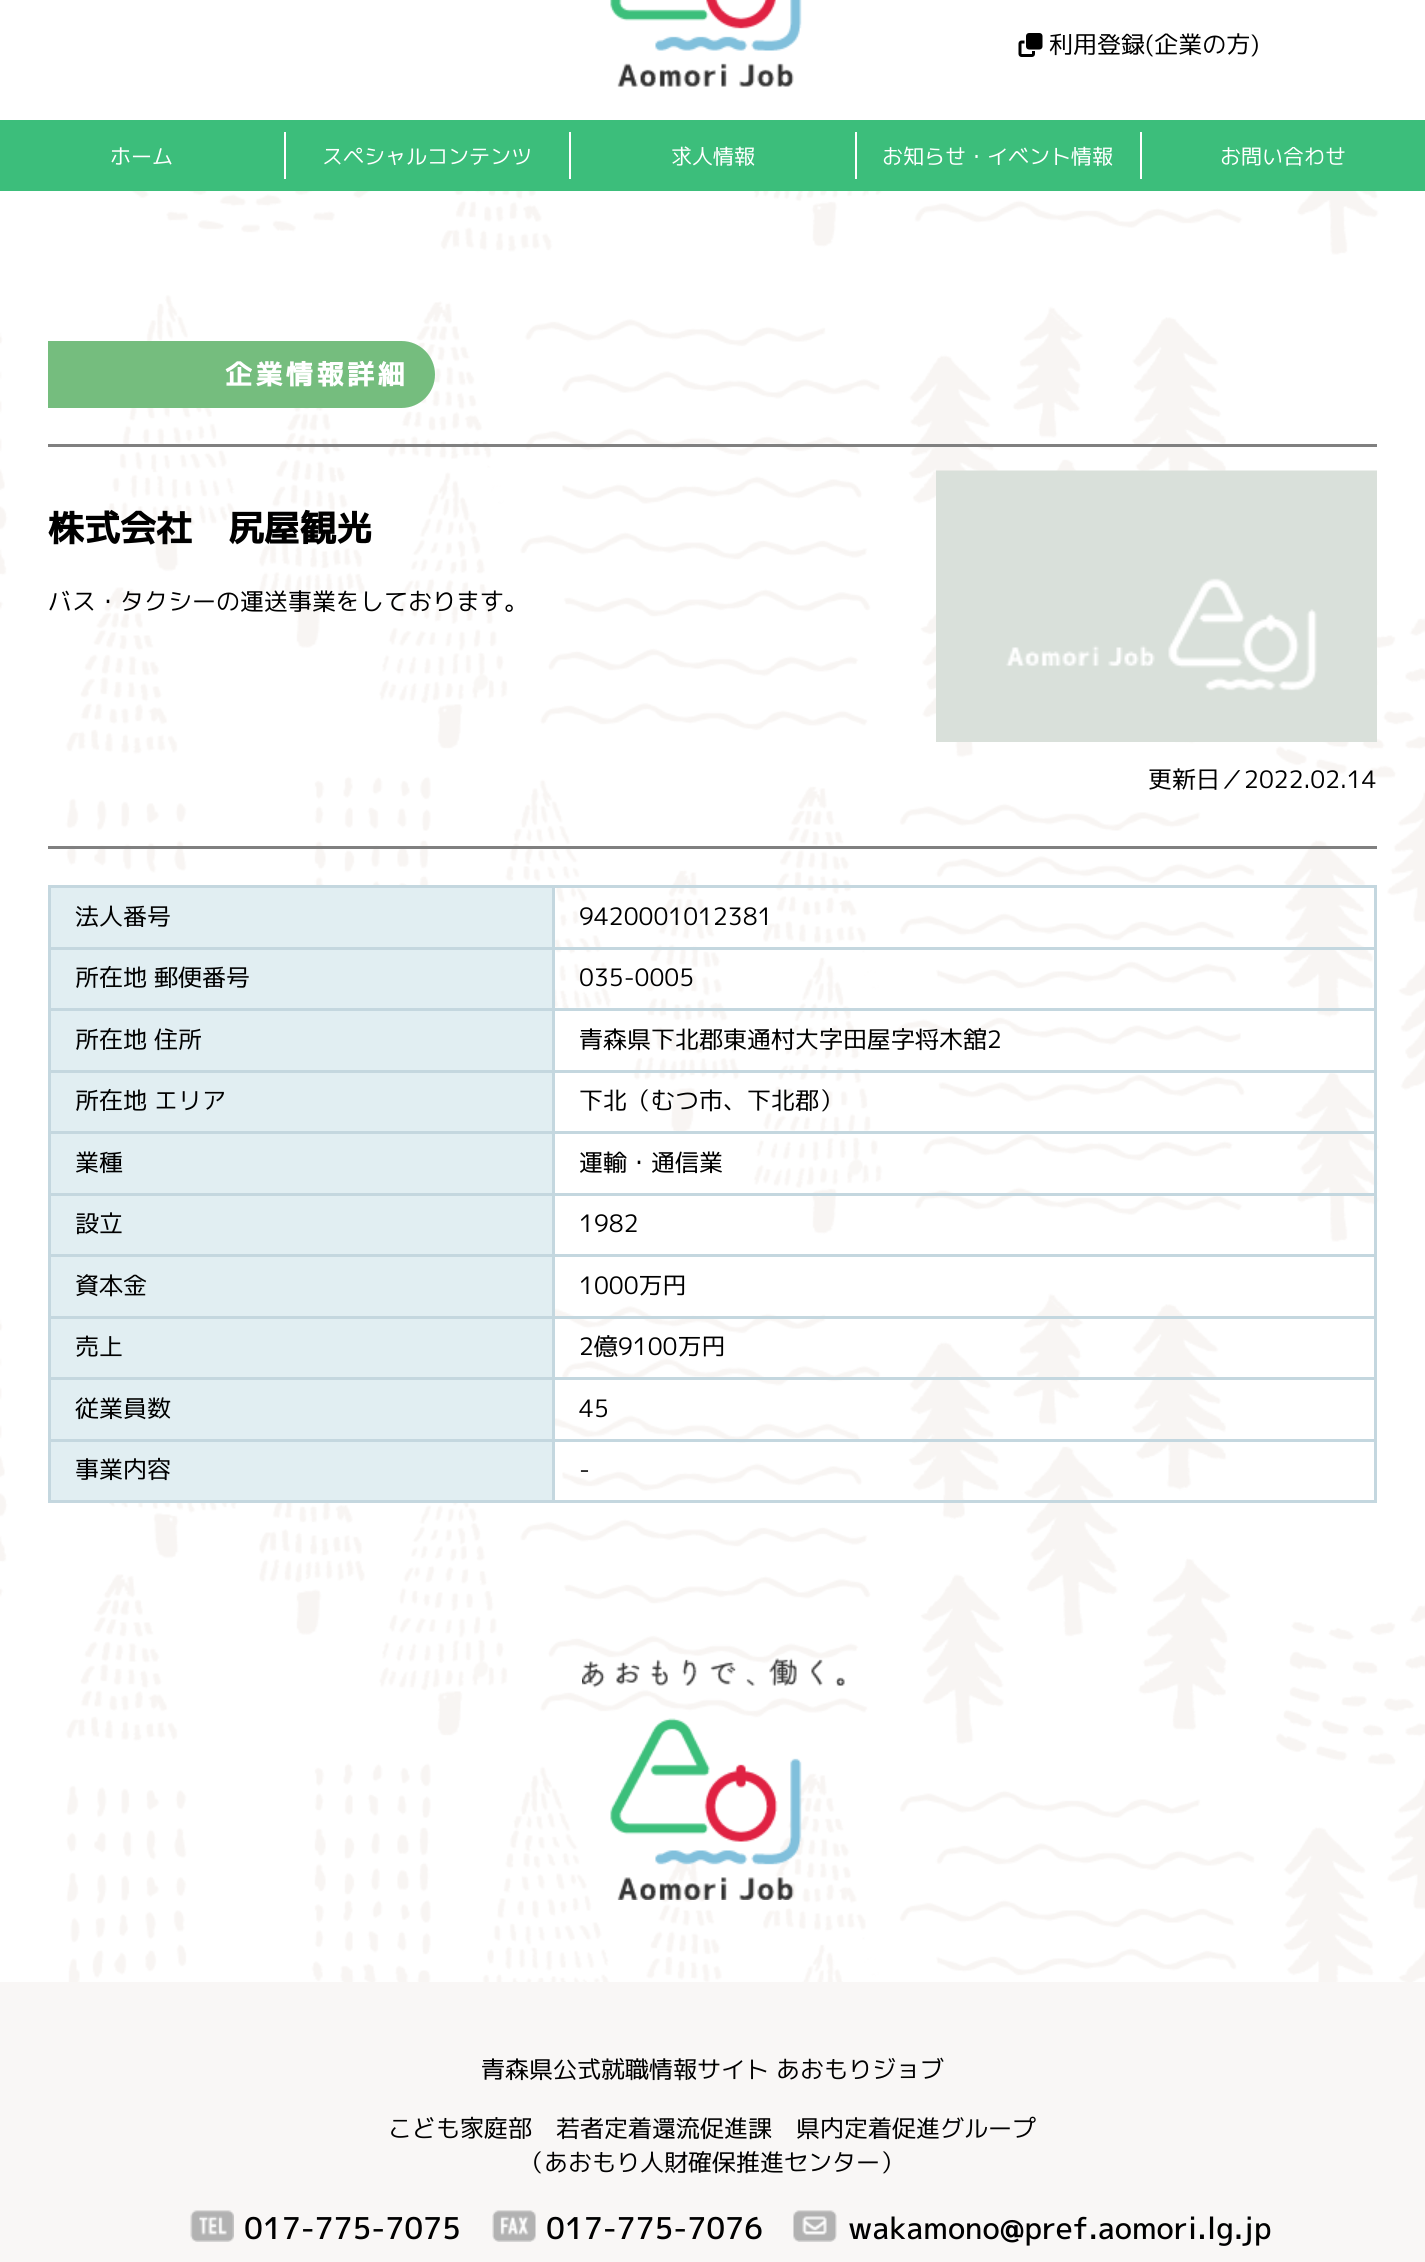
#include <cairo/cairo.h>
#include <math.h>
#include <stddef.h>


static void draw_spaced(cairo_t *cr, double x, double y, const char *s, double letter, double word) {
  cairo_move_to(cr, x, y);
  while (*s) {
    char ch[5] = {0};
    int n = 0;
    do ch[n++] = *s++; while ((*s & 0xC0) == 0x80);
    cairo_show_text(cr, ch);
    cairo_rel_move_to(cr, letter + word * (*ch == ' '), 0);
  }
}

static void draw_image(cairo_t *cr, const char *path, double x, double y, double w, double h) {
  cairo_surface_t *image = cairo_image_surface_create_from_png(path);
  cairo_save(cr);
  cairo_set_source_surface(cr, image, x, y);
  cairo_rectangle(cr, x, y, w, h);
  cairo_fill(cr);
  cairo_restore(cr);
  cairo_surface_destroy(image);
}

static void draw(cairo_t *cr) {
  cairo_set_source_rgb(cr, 1, 1, 1);
  cairo_paint(cr);
  draw_image(cr, "images/1.png", 0, 191, 1425, 1791);
  draw_image(cr, "images/2.png", 610, 0, 192, 87);
  draw_image(cr, "images/3.png", 1018, 33, 25, 24);
  cairo_set_source_rgb(cr, 60 / 255.0, 190 / 255.0, 123 / 255.0);
  cairo_rectangle(cr, 0, 120, 1425, 71);
  cairo_fill(cr);
  cairo_set_source_rgb(cr, 1, 1, 1);
  cairo_rectangle(cr, 284, 132, 2, 47);
  cairo_fill(cr);
  cairo_rectangle(cr, 569, 132, 2, 47);
  cairo_fill(cr);
  cairo_rectangle(cr, 855, 132, 2, 47);
  cairo_fill(cr);
  cairo_rectangle(cr, 1140, 132, 2, 47);
  cairo_fill(cr);
  cairo_set_source_rgb(cr, 117 / 255.0, 189 / 255.0, 126 / 255.0);
  cairo_new_path(cr);
  cairo_move_to(cr, 48, 341);
  cairo_line_to(cr, 401.5, 341);
  cairo_curve_to(cr, 420, 341, 435, 356, 435, 374.5);
  cairo_curve_to(cr, 435, 393, 420, 408, 401.5, 408);
  cairo_line_to(cr, 48, 408);
  cairo_close_path(cr);
  cairo_fill(cr);
  cairo_set_source_rgb(cr, 128 / 255.0, 128 / 255.0, 128 / 255.0);
  cairo_rectangle(cr, 48, 444, 1329, 3);
  cairo_fill(cr);
  cairo_rectangle(cr, 48, 846, 1329, 3);
  cairo_fill(cr);
  draw_image(cr, "images/4.png", 936, 470, 441, 272);
  cairo_set_source_rgb(cr, 225 / 255.0, 238 / 255.0, 242 / 255.0);
  cairo_rectangle(cr, 51, 888, 501, 59);
  cairo_fill(cr);
  cairo_set_source_rgb(cr, 196 / 255.0, 215 / 255.0, 223 / 255.0);
  cairo_rectangle(cr, 552, 885, 825, 3);
  cairo_fill(cr);
  cairo_rectangle(cr, 552, 947, 825, 3);
  cairo_fill(cr);
  cairo_rectangle(cr, 552, 1008, 825, 3);
  cairo_fill(cr);
  cairo_rectangle(cr, 552, 1070, 825, 3);
  cairo_fill(cr);
  cairo_rectangle(cr, 552, 1131, 825, 3);
  cairo_fill(cr);
  cairo_rectangle(cr, 552, 1193, 825, 3);
  cairo_fill(cr);
  cairo_rectangle(cr, 552, 1254, 825, 3);
  cairo_fill(cr);
  cairo_rectangle(cr, 552, 1316, 825, 3);
  cairo_fill(cr);
  cairo_rectangle(cr, 552, 1377, 825, 3);
  cairo_fill(cr);
  cairo_rectangle(cr, 552, 1439, 825, 3);
  cairo_fill(cr);
  cairo_rectangle(cr, 1374, 1439, 3, 64);
  cairo_fill(cr);
  cairo_rectangle(cr, 552, 1500, 825, 3);
  cairo_fill(cr);
  cairo_rectangle(cr, 552, 1439, 3, 64);
  cairo_fill(cr);
  cairo_rectangle(cr, 48, 1439, 507, 3);
  cairo_fill(cr);
  cairo_rectangle(cr, 552, 1377, 3, 65);
  cairo_fill(cr);
  cairo_rectangle(cr, 48, 1377, 507, 3);
  cairo_fill(cr);
  cairo_rectangle(cr, 552, 1316, 3, 64);
  cairo_fill(cr);
  cairo_rectangle(cr, 48, 1316, 507, 3);
  cairo_fill(cr);
  cairo_rectangle(cr, 552, 1254, 3, 65);
  cairo_fill(cr);
  cairo_rectangle(cr, 48, 1254, 507, 3);
  cairo_fill(cr);
  cairo_rectangle(cr, 552, 1193, 3, 64);
  cairo_fill(cr);
  cairo_rectangle(cr, 48, 1193, 507, 3);
  cairo_fill(cr);
  cairo_rectangle(cr, 552, 1131, 3, 65);
  cairo_fill(cr);
  cairo_rectangle(cr, 48, 1131, 507, 3);
  cairo_fill(cr);
  cairo_rectangle(cr, 552, 1070, 3, 64);
  cairo_fill(cr);
  cairo_rectangle(cr, 48, 1070, 507, 3);
  cairo_fill(cr);
  cairo_rectangle(cr, 552, 1008, 3, 65);
  cairo_fill(cr);
  cairo_rectangle(cr, 48, 1008, 507, 3);
  cairo_fill(cr);
  cairo_rectangle(cr, 552, 947, 3, 64);
  cairo_fill(cr);
  cairo_rectangle(cr, 48, 947, 507, 3);
  cairo_fill(cr);
  cairo_rectangle(cr, 552, 885, 3, 65);
  cairo_fill(cr);
  cairo_rectangle(cr, 48, 885, 507, 3);
  cairo_fill(cr);
  cairo_rectangle(cr, 48, 1500, 507, 3);
  cairo_fill(cr);
  cairo_rectangle(cr, 48, 1439, 3, 64);
  cairo_fill(cr);
  cairo_rectangle(cr, 48, 1377, 3, 65);
  cairo_fill(cr);
  cairo_rectangle(cr, 48, 1316, 3, 64);
  cairo_fill(cr);
  cairo_rectangle(cr, 48, 1254, 3, 65);
  cairo_fill(cr);
  cairo_rectangle(cr, 48, 1193, 3, 64);
  cairo_fill(cr);
  cairo_rectangle(cr, 48, 1131, 3, 65);
  cairo_fill(cr);
  cairo_rectangle(cr, 48, 1070, 3, 64);
  cairo_fill(cr);
  cairo_rectangle(cr, 48, 1008, 3, 65);
  cairo_fill(cr);
  cairo_rectangle(cr, 48, 947, 3, 64);
  cairo_fill(cr);
  cairo_rectangle(cr, 48, 885, 3, 65);
  cairo_fill(cr);
  cairo_rectangle(cr, 1374, 1377, 3, 65);
  cairo_fill(cr);
  cairo_rectangle(cr, 1374, 1316, 3, 64);
  cairo_fill(cr);
  cairo_rectangle(cr, 1374, 1254, 3, 65);
  cairo_fill(cr);
  cairo_rectangle(cr, 1374, 1193, 3, 64);
  cairo_fill(cr);
  cairo_rectangle(cr, 1374, 1131, 3, 65);
  cairo_fill(cr);
  cairo_rectangle(cr, 1374, 1070, 3, 64);
  cairo_fill(cr);
  cairo_rectangle(cr, 1374, 1008, 3, 65);
  cairo_fill(cr);
  cairo_rectangle(cr, 1374, 947, 3, 64);
  cairo_fill(cr);
  cairo_rectangle(cr, 1374, 885, 3, 65);
  cairo_fill(cr);
  cairo_set_source_rgb(cr, 225 / 255.0, 238 / 255.0, 242 / 255.0);
  cairo_rectangle(cr, 51, 950, 501, 58);
  cairo_fill(cr);
  cairo_rectangle(cr, 51, 1011, 501, 59);
  cairo_fill(cr);
  cairo_rectangle(cr, 51, 1073, 501, 58);
  cairo_fill(cr);
  cairo_rectangle(cr, 51, 1134, 501, 59);
  cairo_fill(cr);
  cairo_rectangle(cr, 51, 1196, 501, 58);
  cairo_fill(cr);
  cairo_rectangle(cr, 51, 1257, 501, 59);
  cairo_fill(cr);
  cairo_rectangle(cr, 51, 1319, 501, 58);
  cairo_fill(cr);
  cairo_rectangle(cr, 51, 1380, 501, 59);
  cairo_fill(cr);
  cairo_rectangle(cr, 51, 1442, 501, 58);
  cairo_fill(cr);
  draw_image(cr, "images/5.png", 582, 1658, 263, 242);
  cairo_set_source_rgb(cr, 249 / 255.0, 247 / 255.0, 246 / 255.0);
  cairo_rectangle(cr, 0, 1982, 1425, 280);
  cairo_fill(cr);
  draw_image(cr, "images/6.png", 190, 2210, 44, 32);
  draw_image(cr, "images/7.png", 492, 2210, 44, 32);
  draw_image(cr, "images/8.png", 793, 2210, 44, 32);
  cairo_select_font_face(cr, "M PLUS 1p", CAIRO_FONT_SLANT_NORMAL, CAIRO_FONT_WEIGHT_NORMAL);
  cairo_set_font_size(cr, 24);
  cairo_set_source_rgb(cr, 0, 0, 0);
  cairo_move_to(cr, 1049, 53);
  cairo_show_text(cr, "利用登録(企業の方)");
  cairo_set_font_size(cr, 21);
  cairo_set_source_rgb(cr, 1, 1, 1);
  cairo_move_to(cr, 110, 164);
  cairo_show_text(cr, "ホーム");
  cairo_move_to(cr, 322, 164);
  cairo_show_text(cr, "スペシャルコンテンツ");
  cairo_move_to(cr, 671, 164);
  cairo_show_text(cr, "求人情報");
  cairo_move_to(cr, 882, 164);
  cairo_show_text(cr, "お知らせ・イベント情報");
  cairo_move_to(cr, 1220, 164);
  cairo_show_text(cr, "お問い合わせ");
  cairo_select_font_face(cr, "M PLUS 1p", CAIRO_FONT_SLANT_NORMAL, CAIRO_FONT_WEIGHT_BOLD);
  cairo_set_font_size(cr, 27);
  draw_spaced(cr, 225, 384, "企業情報詳細", 3.5, 0);
  cairo_set_font_size(cr, 36);
  cairo_set_source_rgb(cr, 0, 0, 0);
  cairo_move_to(cr, 48, 541);
  cairo_show_text(cr, "株式会社　尻屋観光");
  cairo_select_font_face(cr, "M PLUS 1p", CAIRO_FONT_SLANT_NORMAL, CAIRO_FONT_WEIGHT_NORMAL);
  cairo_set_font_size(cr, 24);
  cairo_move_to(cr, 48, 610);
  cairo_show_text(cr, "バス・タクシーの運送事業をしております。");
  cairo_move_to(cr, 1148, 788);
  cairo_show_text(cr, "更新日／2022.02.14");
  cairo_move_to(cr, 75, 925);
  cairo_show_text(cr, "法人番号");
  cairo_move_to(cr, 579, 925);
  cairo_show_text(cr, "9420001012381");
  cairo_move_to(cr, 75, 986);
  cairo_show_text(cr, "所在地 郵便番号");
  cairo_move_to(cr, 579, 986);
  cairo_show_text(cr, "035-0005");
  cairo_move_to(cr, 75, 1048);
  cairo_show_text(cr, "所在地 住所");
  cairo_move_to(cr, 579, 1048);
  cairo_show_text(cr, "青森県下北郡東通村大字田屋字将木舘2");
  cairo_move_to(cr, 75, 1109);
  cairo_show_text(cr, "所在地 エリア");
  cairo_move_to(cr, 579, 1109);
  cairo_show_text(cr, "下北（むつ市、下北郡）");
  cairo_move_to(cr, 75, 1171);
  cairo_show_text(cr, "業種");
  cairo_move_to(cr, 579, 1171);
  cairo_show_text(cr, "運輸・通信業");
  cairo_move_to(cr, 75, 1232);
  cairo_show_text(cr, "設立");
  cairo_move_to(cr, 579, 1232);
  cairo_show_text(cr, "1982");
  cairo_move_to(cr, 75, 1294);
  cairo_show_text(cr, "資本金");
  cairo_move_to(cr, 579, 1294);
  cairo_show_text(cr, "1000万円");
  cairo_move_to(cr, 75, 1355);
  cairo_show_text(cr, "売上");
  cairo_move_to(cr, 579, 1355);
  cairo_show_text(cr, "2億9100万円");
  cairo_move_to(cr, 75, 1417);
  cairo_show_text(cr, "従業員数");
  cairo_move_to(cr, 579, 1417);
  cairo_show_text(cr, "45");
  cairo_move_to(cr, 75, 1478);
  cairo_show_text(cr, "事業内容");
  cairo_move_to(cr, 579, 1478);
  cairo_show_text(cr, "-");
  cairo_move_to(cr, 481, 2078);
  cairo_show_text(cr, "青森県公式就職情報サイト あおもりジョブ");
  cairo_move_to(cr, 388, 2137);
  cairo_show_text(cr, "こども家庭部　若者定着還流促進課　県内定着促進グループ");
  cairo_move_to(cr, 520, 2171);
  cairo_show_text(cr, "（あおもり人財確保推進センター）");
  cairo_select_font_face(cr, "M PLUS 1p Medium", CAIRO_FONT_SLANT_NORMAL, CAIRO_FONT_WEIGHT_NORMAL);
  cairo_set_font_size(cr, 30);
  cairo_move_to(cr, 244, 2239);
  cairo_show_text(cr, "017-775-7075");
  cairo_move_to(cr, 546, 2239);
  cairo_show_text(cr, "017-775-7076");
  cairo_move_to(cr, 848, 2239);
  cairo_show_text(cr, "wakamono@pref.aomori.lg.jp");
}

int main(void) {
  cairo_surface_t *surface = cairo_image_surface_create(CAIRO_FORMAT_RGB24, 1425, 2262);
  cairo_t *cr = cairo_create(surface);
  cairo_font_options_t *options = cairo_font_options_create();
  cairo_font_options_set_hint_metrics(options, CAIRO_HINT_METRICS_OFF);
  cairo_font_options_set_hint_style(options, CAIRO_HINT_STYLE_NONE);
  cairo_set_font_options(cr, options);
  cairo_set_miter_limit(cr, 4);
  draw(cr);
  cairo_surface_write_to_png(surface, "out.png");
  cairo_font_options_destroy(options);
  cairo_destroy(cr);
  cairo_surface_destroy(surface);
  return 0;
}
